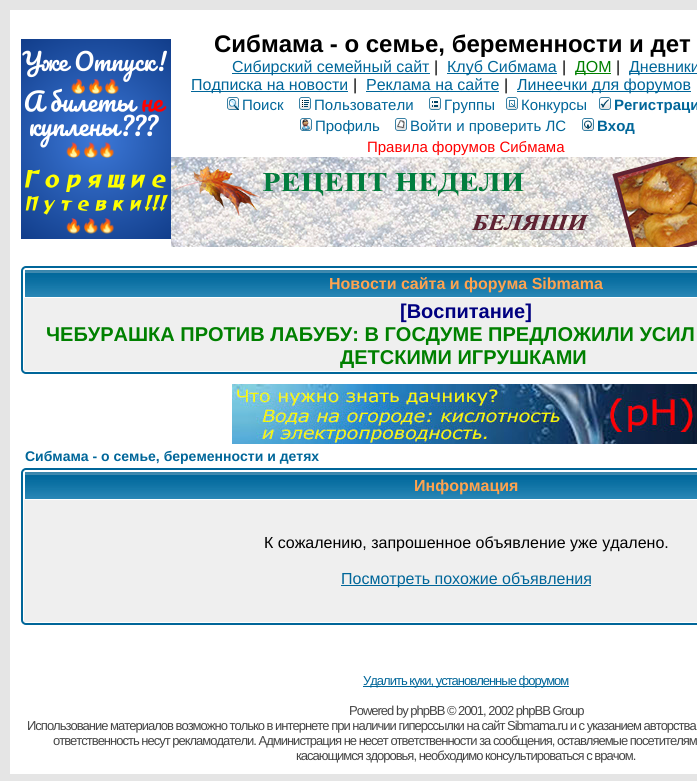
#include <cairo/cairo.h>
#include <math.h>
#include <stddef.h>


static void draw_spaced(cairo_t *cr, double x, double y, const char *s, double letter, double word) {
  cairo_move_to(cr, x, y);
  while (*s) {
    char ch[5] = {0};
    int n = 0;
    do ch[n++] = *s++; while ((*s & 0xC0) == 0x80);
    cairo_show_text(cr, ch);
    cairo_rel_move_to(cr, letter + word * (*ch == ' '), 0);
  }
}

static void rounded_rect(cairo_t *cr, double x, double y, double w, double h, double r) {
  cairo_new_sub_path(cr);
  cairo_arc(cr, x + w - r, y + h - r, r, 0, M_PI / 2);
  cairo_arc(cr, x + r, y + h - r, r, M_PI / 2, M_PI);
  cairo_arc(cr, x + r, y + r, r, M_PI, 1.5 * M_PI);
  cairo_arc(cr, x + w - r, y + r, r, 1.5 * M_PI, 2 * M_PI);
  cairo_close_path(cr);
}

static void draw_image(cairo_t *cr, const char *path, double x, double y, double w, double h) {
  cairo_surface_t *image = cairo_image_surface_create_from_png(path);
  cairo_save(cr);
  cairo_set_source_surface(cr, image, x, y);
  cairo_rectangle(cr, x, y, w, h);
  cairo_fill(cr);
  cairo_restore(cr);
  cairo_surface_destroy(image);
}

static void draw(cairo_t *cr) {
  cairo_set_source_rgb(cr, 229 / 255.0, 229 / 255.0, 229 / 255.0);
  cairo_paint(cr);
  cairo_set_source_rgb(cr, 1, 1, 1);
  cairo_rectangle(cr, 10, 10, 687, 764);
  cairo_fill(cr);
  draw_image(cr, "images/1.png", 21, 39, 150, 200);
  cairo_set_source_rgb(cr, 0, 102 / 255.0, 153 / 255.0);
  cairo_rectangle(cr, 232, 73, 198, 1);
  cairo_fill(cr);
  cairo_rectangle(cr, 447, 73, 110, 1);
  cairo_fill(cr);
  cairo_set_source_rgb(cr, 0, 128 / 255.0, 0);
  cairo_rectangle(cr, 575, 73, 36, 1);
  cairo_fill(cr);
  cairo_set_source_rgb(cr, 0, 102 / 255.0, 153 / 255.0);
  cairo_rectangle(cr, 629, 73, 68, 1);
  cairo_fill(cr);
  cairo_rectangle(cr, 191, 91, 157, 1);
  cairo_fill(cr);
  cairo_rectangle(cr, 366, 91, 133, 1);
  cairo_fill(cr);
  cairo_rectangle(cr, 517, 91, 174, 1);
  cairo_fill(cr);
  draw_image(cr, "images/2.png", 227, 97, 12, 13);
  draw_image(cr, "images/3.png", 299, 97, 12, 13);
  draw_image(cr, "images/4.png", 429, 97, 12, 13);
  draw_image(cr, "images/5.png", 506, 97, 12, 13);
  draw_image(cr, "images/6.png", 599, 97, 12, 13);
  draw_image(cr, "images/7.png", 300, 118, 12, 13);
  draw_image(cr, "images/8.png", 395, 118, 12, 13);
  draw_image(cr, "images/9.png", 582, 118, 12, 13);
  draw_image(cr, "images/10.png", 171, 157, 526, 90);
  rounded_rect(cr, 22, 267, 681, 106, 4);
  cairo_stroke(cr);
  draw_image(cr, "images/11.png", 25, 270, 672, 27);
  cairo_set_source_rgb(cr, 239 / 255.0, 239 / 255.0, 239 / 255.0);
  cairo_rectangle(cr, 24, 298, 673, 73);
  cairo_fill(cr);
  draw_image(cr, "images/12.png", 232, 384, 465, 60);
  rounded_rect(cr, 22, 469, 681, 155, 4);
  cairo_set_source_rgb(cr, 0, 102 / 255.0, 153 / 255.0);
  cairo_stroke(cr);
  draw_image(cr, "images/11.png", 25, 472, 672, 27);
  cairo_set_source_rgb(cr, 239 / 255.0, 239 / 255.0, 239 / 255.0);
  cairo_rectangle(cr, 24, 500, 673, 122);
  cairo_fill(cr);
  cairo_set_source_rgb(cr, 0, 102 / 255.0, 153 / 255.0);
  cairo_rectangle(cr, 341, 585, 250, 1);
  cairo_fill(cr);
  cairo_rectangle(cr, 363, 686, 206, 1);
  cairo_fill(cr);
  cairo_select_font_face(cr, "Liberation Sans", CAIRO_FONT_SLANT_NORMAL, CAIRO_FONT_WEIGHT_BOLD);
  cairo_set_font_size(cr, 24);
  cairo_set_source_rgb(cr, 0, 0, 0);
  cairo_move_to(cr, 214, 52);
  cairo_show_text(cr, "Сибмама - о семье, беременности и дет");
  cairo_select_font_face(cr, "Liberation Sans", CAIRO_FONT_SLANT_NORMAL, CAIRO_FONT_WEIGHT_NORMAL);
  cairo_set_font_size(cr, 16);
  cairo_set_source_rgb(cr, 0, 102 / 255.0, 153 / 255.0);
  cairo_move_to(cr, 232, 72);
  cairo_show_text(cr, "Сибирский семейный сайт");
  cairo_set_source_rgb(cr, 0, 0, 0);
  cairo_move_to(cr, 434, 72);
  cairo_show_text(cr, "|");
  cairo_set_source_rgb(cr, 0, 102 / 255.0, 153 / 255.0);
  cairo_move_to(cr, 447, 72);
  cairo_show_text(cr, "Клуб Сибмама");
  cairo_set_source_rgb(cr, 0, 0, 0);
  cairo_move_to(cr, 562, 72);
  cairo_show_text(cr, "|");
  cairo_set_source_rgb(cr, 0, 128 / 255.0, 0);
  cairo_move_to(cr, 575, 72);
  cairo_show_text(cr, "ДОМ");
  cairo_set_source_rgb(cr, 0, 0, 0);
  cairo_move_to(cr, 616, 72);
  cairo_show_text(cr, "|");
  cairo_set_source_rgb(cr, 0, 102 / 255.0, 153 / 255.0);
  cairo_move_to(cr, 629, 72);
  cairo_show_text(cr, "Дневники");
  cairo_move_to(cr, 191, 90);
  cairo_show_text(cr, "Подписка на новости");
  cairo_set_source_rgb(cr, 0, 0, 0);
  cairo_move_to(cr, 353, 90);
  cairo_show_text(cr, "|");
  cairo_set_source_rgb(cr, 0, 102 / 255.0, 153 / 255.0);
  cairo_move_to(cr, 366, 90);
  cairo_show_text(cr, "Реклама на сайте");
  cairo_set_source_rgb(cr, 0, 0, 0);
  cairo_move_to(cr, 504, 90);
  cairo_show_text(cr, "|");
  cairo_set_source_rgb(cr, 0, 102 / 255.0, 153 / 255.0);
  cairo_move_to(cr, 517, 90);
  cairo_show_text(cr, "Линеечки для форумов");
  cairo_set_font_size(cr, 15);
  cairo_move_to(cr, 242, 110);
  cairo_show_text(cr, "Поиск");
  cairo_move_to(cr, 314, 110);
  cairo_show_text(cr, "Пользователи");
  cairo_move_to(cr, 444, 110);
  cairo_show_text(cr, "Группы");
  cairo_move_to(cr, 521, 110);
  cairo_show_text(cr, "Конкурсы");
  cairo_select_font_face(cr, "Liberation Sans", CAIRO_FONT_SLANT_NORMAL, CAIRO_FONT_WEIGHT_BOLD);
  cairo_move_to(cr, 614, 110);
  cairo_show_text(cr, "Рeгиcтpaци");
  cairo_select_font_face(cr, "Liberation Sans", CAIRO_FONT_SLANT_NORMAL, CAIRO_FONT_WEIGHT_NORMAL);
  cairo_move_to(cr, 315, 131);
  cairo_show_text(cr, "Профиль");
  cairo_move_to(cr, 410, 131);
  cairo_show_text(cr, "Войти и проверить ЛС");
  cairo_select_font_face(cr, "Liberation Sans", CAIRO_FONT_SLANT_NORMAL, CAIRO_FONT_WEIGHT_BOLD);
  cairo_move_to(cr, 597, 131);
  cairo_show_text(cr, "Вход");
  cairo_select_font_face(cr, "Liberation Sans", CAIRO_FONT_SLANT_NORMAL, CAIRO_FONT_WEIGHT_NORMAL);
  cairo_set_source_rgb(cr, 1, 0, 0);
  cairo_move_to(cr, 367, 152);
  cairo_show_text(cr, "Правила форумов Сибмама");
  cairo_select_font_face(cr, "Liberation Sans", CAIRO_FONT_SLANT_NORMAL, CAIRO_FONT_WEIGHT_BOLD);
  cairo_set_font_size(cr, 16);
  cairo_set_source_rgb(cr, 1, 163 / 255.0, 79 / 255.0);
  cairo_move_to(cr, 329, 289);
  cairo_show_text(cr, "Новости сайта и форума Sibmama");
  cairo_set_font_size(cr, 20);
  cairo_set_source_rgb(cr, 0, 0, 128 / 255.0);
  cairo_move_to(cr, 400, 318);
  cairo_show_text(cr, "[Воспитание]");
  cairo_set_source_rgb(cr, 0, 128 / 255.0, 0);
  cairo_move_to(cr, 46, 341);
  cairo_show_text(cr, "ЧЕБУРАШКА ПРОТИВ ЛАБУБУ: В ГОСДУМЕ ПРЕДЛОЖИЛИ УСИЛ");
  cairo_move_to(cr, 340, 364);
  cairo_show_text(cr, "ДЕТСКИМИ ИГРУШКАМИ");
  cairo_set_font_size(cr, 14);
  cairo_set_source_rgb(cr, 0, 102 / 255.0, 153 / 255.0);
  cairo_move_to(cr, 25, 461);
  cairo_show_text(cr, "Сибмама - о семье, беременности и детях");
  cairo_set_font_size(cr, 16);
  cairo_set_source_rgb(cr, 1, 163 / 255.0, 79 / 255.0);
  cairo_move_to(cr, 414, 491);
  cairo_show_text(cr, "Информация");
  cairo_select_font_face(cr, "Liberation Sans", CAIRO_FONT_SLANT_NORMAL, CAIRO_FONT_WEIGHT_NORMAL);
  cairo_set_source_rgb(cr, 0, 0, 0);
  cairo_move_to(cr, 264, 548);
  cairo_show_text(cr, "К сожалению, запрошенное объявление уже удалено.");
  cairo_set_source_rgb(cr, 0, 102 / 255.0, 153 / 255.0);
  cairo_move_to(cr, 341, 584);
  cairo_show_text(cr, "Посмотреть похожие объявления");
  cairo_set_font_size(cr, 13);
  draw_spaced(cr, 363, 685, "Удалить куки, установленные форумом", -1, 0);
  cairo_set_source_rgb(cr, 68 / 255.0, 68 / 255.0, 68 / 255.0);
  draw_spaced(cr, 349, 715, "Powered by рhрВВ © 2001, 2002 рhрВВ Grоuр", -1, 0);
  draw_spaced(cr, 27, 730, "Использование материалов возможно только в интернете при наличии гиперссылки на сайт Sibmama.ru и с указанием авторства.", -1, 0);
  draw_spaced(cr, 53, 745, "ответственность несут рекламодатели. Администрация не несет ответственности за сообщения, оставляемые посетителям", -1, 0);
  draw_spaced(cr, 296, 760, "касающимся здоровья, необходимо консультироваться с врачом.", -1, 0);
}

int main(void) {
  cairo_surface_t *surface = cairo_image_surface_create(CAIRO_FORMAT_RGB24, 697, 781);
  cairo_t *cr = cairo_create(surface);
  cairo_font_options_t *options = cairo_font_options_create();
  cairo_font_options_set_hint_metrics(options, CAIRO_HINT_METRICS_OFF);
  cairo_font_options_set_hint_style(options, CAIRO_HINT_STYLE_NONE);
  cairo_set_font_options(cr, options);
  cairo_set_miter_limit(cr, 4);
  draw(cr);
  cairo_surface_write_to_png(surface, "out.png");
  cairo_font_options_destroy(options);
  cairo_destroy(cr);
  cairo_surface_destroy(surface);
  return 0;
}
